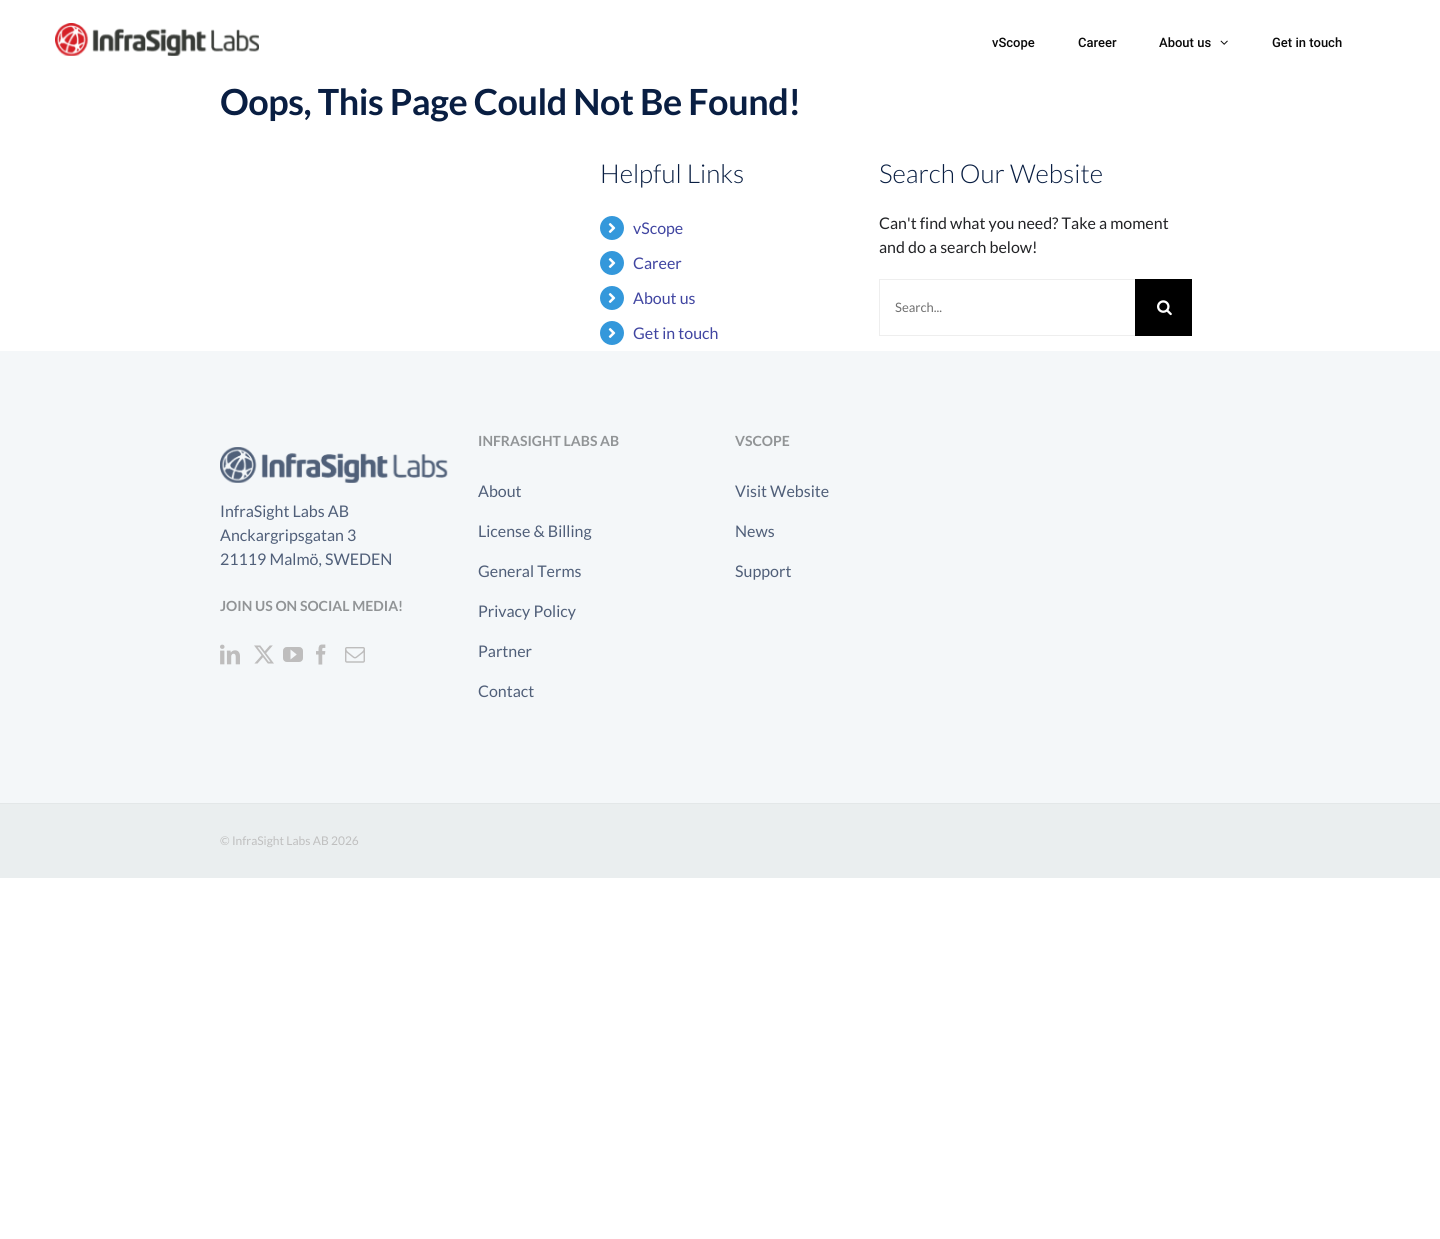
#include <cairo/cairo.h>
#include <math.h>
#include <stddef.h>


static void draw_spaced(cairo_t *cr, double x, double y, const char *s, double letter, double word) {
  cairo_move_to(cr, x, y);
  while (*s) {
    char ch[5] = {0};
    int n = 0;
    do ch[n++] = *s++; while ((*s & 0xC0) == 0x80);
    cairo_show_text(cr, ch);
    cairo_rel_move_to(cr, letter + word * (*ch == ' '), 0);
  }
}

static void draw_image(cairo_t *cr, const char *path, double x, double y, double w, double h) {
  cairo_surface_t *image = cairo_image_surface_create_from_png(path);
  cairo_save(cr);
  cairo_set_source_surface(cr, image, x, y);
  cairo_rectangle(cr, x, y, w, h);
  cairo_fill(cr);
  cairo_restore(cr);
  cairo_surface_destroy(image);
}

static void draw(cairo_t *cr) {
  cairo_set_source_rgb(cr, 1, 1, 1);
  cairo_paint(cr);
  draw_image(cr, "images/1.png", 55, 23, 204, 33);
  draw_image(cr, "images/2.png", 1220, 40, 8, 5);
  cairo_set_source_rgb(cr, 52 / 255.0, 152 / 255.0, 219 / 255.0);
  cairo_arc(cr, 612, 228, 12, 0, 2 * M_PI);
  cairo_fill(cr);
  draw_image(cr, "images/3.png", 608, 223, 8, 10);
  cairo_arc(cr, 612, 263, 12, 0, 2 * M_PI);
  cairo_fill(cr);
  draw_image(cr, "images/3.png", 608, 258, 8, 10);
  cairo_arc(cr, 612, 298, 12, 0, 2 * M_PI);
  cairo_fill(cr);
  draw_image(cr, "images/3.png", 608, 293, 8, 10);
  cairo_arc(cr, 612, 333, 12, 0, 2 * M_PI);
  cairo_fill(cr);
  draw_image(cr, "images/3.png", 608, 328, 8, 10);
  cairo_set_source_rgb(cr, 238 / 255.0, 238 / 255.0, 238 / 255.0);
  cairo_rectangle(cr, 879, 279, 256, 1);
  cairo_fill(cr);
  cairo_rectangle(cr, 879, 335, 256, 1);
  cairo_fill(cr);
  cairo_rectangle(cr, 879, 279, 1, 57);
  cairo_fill(cr);
  cairo_set_source_rgb(cr, 0, 0, 0);
  cairo_rectangle(cr, 1135, 279, 57, 57);
  cairo_fill(cr);
  draw_image(cr, "images/4.png", 1157, 300, 15, 16);
  cairo_set_source_rgb(cr, 244 / 255.0, 247 / 255.0, 249 / 255.0);
  cairo_rectangle(cr, 0, 351, 1440, 452);
  cairo_fill(cr);
  draw_image(cr, "images/5.png", 220, 447, 228, 36);
  draw_image(cr, "images/6.png", 220, 644, 20, 21);
  draw_image(cr, "images/7.png", 254, 645, 20, 19);
  draw_image(cr, "images/8.png", 283, 647, 20, 15);
  draw_image(cr, "images/9.png", 316, 644, 10, 21);
  draw_image(cr, "images/10.png", 345, 647, 20, 16);
  cairo_set_source_rgb(cr, 234 / 255.0, 238 / 255.0, 239 / 255.0);
  cairo_rectangle(cr, 0, 804, 1440, 74);
  cairo_fill(cr);
  cairo_set_source_rgb(cr, 227 / 255.0, 231 / 255.0, 232 / 255.0);
  cairo_rectangle(cr, 0, 803, 1440, 1);
  cairo_fill(cr);
  cairo_select_font_face(cr, "Roboto Medium", CAIRO_FONT_SLANT_NORMAL, CAIRO_FONT_WEIGHT_NORMAL);
  cairo_set_font_size(cr, 13);
  cairo_set_source_rgb(cr, 10 / 255.0, 10 / 255.0, 10 / 255.0);
  cairo_move_to(cr, 992, 47);
  cairo_show_text(cr, "vScope");
  cairo_move_to(cr, 1078, 47);
  cairo_show_text(cr, "Career");
  cairo_move_to(cr, 1159, 47);
  cairo_show_text(cr, "About us");
  cairo_move_to(cr, 1272, 47);
  cairo_show_text(cr, "Get in touch");
  cairo_select_font_face(cr, "Lato", CAIRO_FONT_SLANT_NORMAL, CAIRO_FONT_WEIGHT_BOLD);
  cairo_set_font_size(cr, 36);
  cairo_set_source_rgb(cr, 9 / 255.0, 30 / 255.0, 66 / 255.0);
  draw_spaced(cr, 220, 115, "Oops, This Page Could Not Be Found!", -0.45, 0);
  cairo_select_font_face(cr, "Lato Light", CAIRO_FONT_SLANT_NORMAL, CAIRO_FONT_WEIGHT_NORMAL);
  cairo_set_font_size(cr, 26);
  cairo_move_to(cr, 600, 183);
  cairo_show_text(cr, "Helpful Links");
  cairo_select_font_face(cr, "Lato", CAIRO_FONT_SLANT_NORMAL, CAIRO_FONT_WEIGHT_NORMAL);
  cairo_set_font_size(cr, 16);
  cairo_set_source_rgb(cr, 64 / 255.0, 69 / 255.0, 161 / 255.0);
  cairo_move_to(cr, 633, 234);
  cairo_show_text(cr, "vScope");
  cairo_move_to(cr, 633, 269);
  cairo_show_text(cr, "Career");
  cairo_move_to(cr, 633, 304);
  cairo_show_text(cr, "About us");
  cairo_move_to(cr, 633, 339);
  cairo_show_text(cr, "Get in touch");
  cairo_select_font_face(cr, "Lato Light", CAIRO_FONT_SLANT_NORMAL, CAIRO_FONT_WEIGHT_NORMAL);
  cairo_set_font_size(cr, 26);
  cairo_set_source_rgb(cr, 9 / 255.0, 30 / 255.0, 66 / 255.0);
  cairo_move_to(cr, 879, 183);
  cairo_show_text(cr, "Search Our Website");
  cairo_select_font_face(cr, "Lato", CAIRO_FONT_SLANT_NORMAL, CAIRO_FONT_WEIGHT_NORMAL);
  cairo_set_font_size(cr, 16);
  cairo_set_source_rgb(cr, 34 / 255.0, 35 / 255.0, 38 / 255.0);
  cairo_move_to(cr, 879, 229);
  cairo_show_text(cr, "Can't find what you need? Take a moment");
  cairo_move_to(cr, 879, 253);
  cairo_show_text(cr, "and do a search below!");
  cairo_set_font_size(cr, 13);
  cairo_set_source_rgb(cr, 112 / 255.0, 112 / 255.0, 112 / 255.0);
  cairo_move_to(cr, 895, 312);
  cairo_show_text(cr, "Search...");
  cairo_set_font_size(cr, 16);
  cairo_set_source_rgb(cr, 80 / 255.0, 95 / 255.0, 121 / 255.0);
  cairo_move_to(cr, 220, 517);
  cairo_show_text(cr, "InfraSight Labs AB");
  cairo_move_to(cr, 220, 541);
  cairo_show_text(cr, "Anckargripsgatan 3");
  cairo_move_to(cr, 220, 565);
  cairo_show_text(cr, "21119 Malmö, SWEDEN");
  cairo_select_font_face(cr, "Lato", CAIRO_FONT_SLANT_NORMAL, CAIRO_FONT_WEIGHT_BOLD);
  cairo_set_font_size(cr, 14);
  cairo_set_source_rgb(cr, 145 / 255.0, 148 / 255.0, 150 / 255.0);
  cairo_move_to(cr, 220, 611);
  cairo_show_text(cr, "JOIN US ON SOCIAL MEDIA!");
  cairo_move_to(cr, 478, 446);
  cairo_show_text(cr, "INFRASIGHT LABS AB");
  cairo_select_font_face(cr, "Lato", CAIRO_FONT_SLANT_NORMAL, CAIRO_FONT_WEIGHT_NORMAL);
  cairo_set_font_size(cr, 16);
  cairo_set_source_rgb(cr, 80 / 255.0, 95 / 255.0, 121 / 255.0);
  cairo_move_to(cr, 478, 497);
  cairo_show_text(cr, "About");
  cairo_move_to(cr, 478, 537);
  cairo_show_text(cr, "License & Billing");
  cairo_move_to(cr, 478, 577);
  cairo_show_text(cr, "General Terms");
  cairo_move_to(cr, 478, 617);
  cairo_show_text(cr, "Privacy Policy");
  cairo_move_to(cr, 478, 657);
  cairo_show_text(cr, "Partner");
  cairo_move_to(cr, 478, 697);
  cairo_show_text(cr, "Contact");
  cairo_select_font_face(cr, "Lato", CAIRO_FONT_SLANT_NORMAL, CAIRO_FONT_WEIGHT_BOLD);
  cairo_set_font_size(cr, 14);
  cairo_set_source_rgb(cr, 145 / 255.0, 148 / 255.0, 150 / 255.0);
  cairo_move_to(cr, 735, 446);
  cairo_show_text(cr, "VSCOPE");
  cairo_select_font_face(cr, "Lato", CAIRO_FONT_SLANT_NORMAL, CAIRO_FONT_WEIGHT_NORMAL);
  cairo_set_font_size(cr, 16);
  cairo_set_source_rgb(cr, 80 / 255.0, 95 / 255.0, 121 / 255.0);
  cairo_move_to(cr, 735, 497);
  cairo_show_text(cr, "Visit Website");
  cairo_move_to(cr, 735, 537);
  cairo_show_text(cr, "News");
  cairo_move_to(cr, 735, 577);
  cairo_show_text(cr, "Support");
  cairo_set_font_size(cr, 12);
  cairo_set_source_rgb(cr, 191 / 255.0, 191 / 255.0, 191 / 255.0);
  cairo_move_to(cr, 220, 845);
  cairo_show_text(cr, "© InfraSight Labs AB 2026");
}

int main(void) {
  cairo_surface_t *surface = cairo_image_surface_create(CAIRO_FORMAT_RGB24, 1440, 1239);
  cairo_t *cr = cairo_create(surface);
  cairo_font_options_t *options = cairo_font_options_create();
  cairo_font_options_set_hint_metrics(options, CAIRO_HINT_METRICS_OFF);
  cairo_font_options_set_hint_style(options, CAIRO_HINT_STYLE_NONE);
  cairo_set_font_options(cr, options);
  cairo_set_miter_limit(cr, 4);
  draw(cr);
  cairo_surface_write_to_png(surface, "out.png");
  cairo_font_options_destroy(options);
  cairo_destroy(cr);
  cairo_surface_destroy(surface);
  return 0;
}
